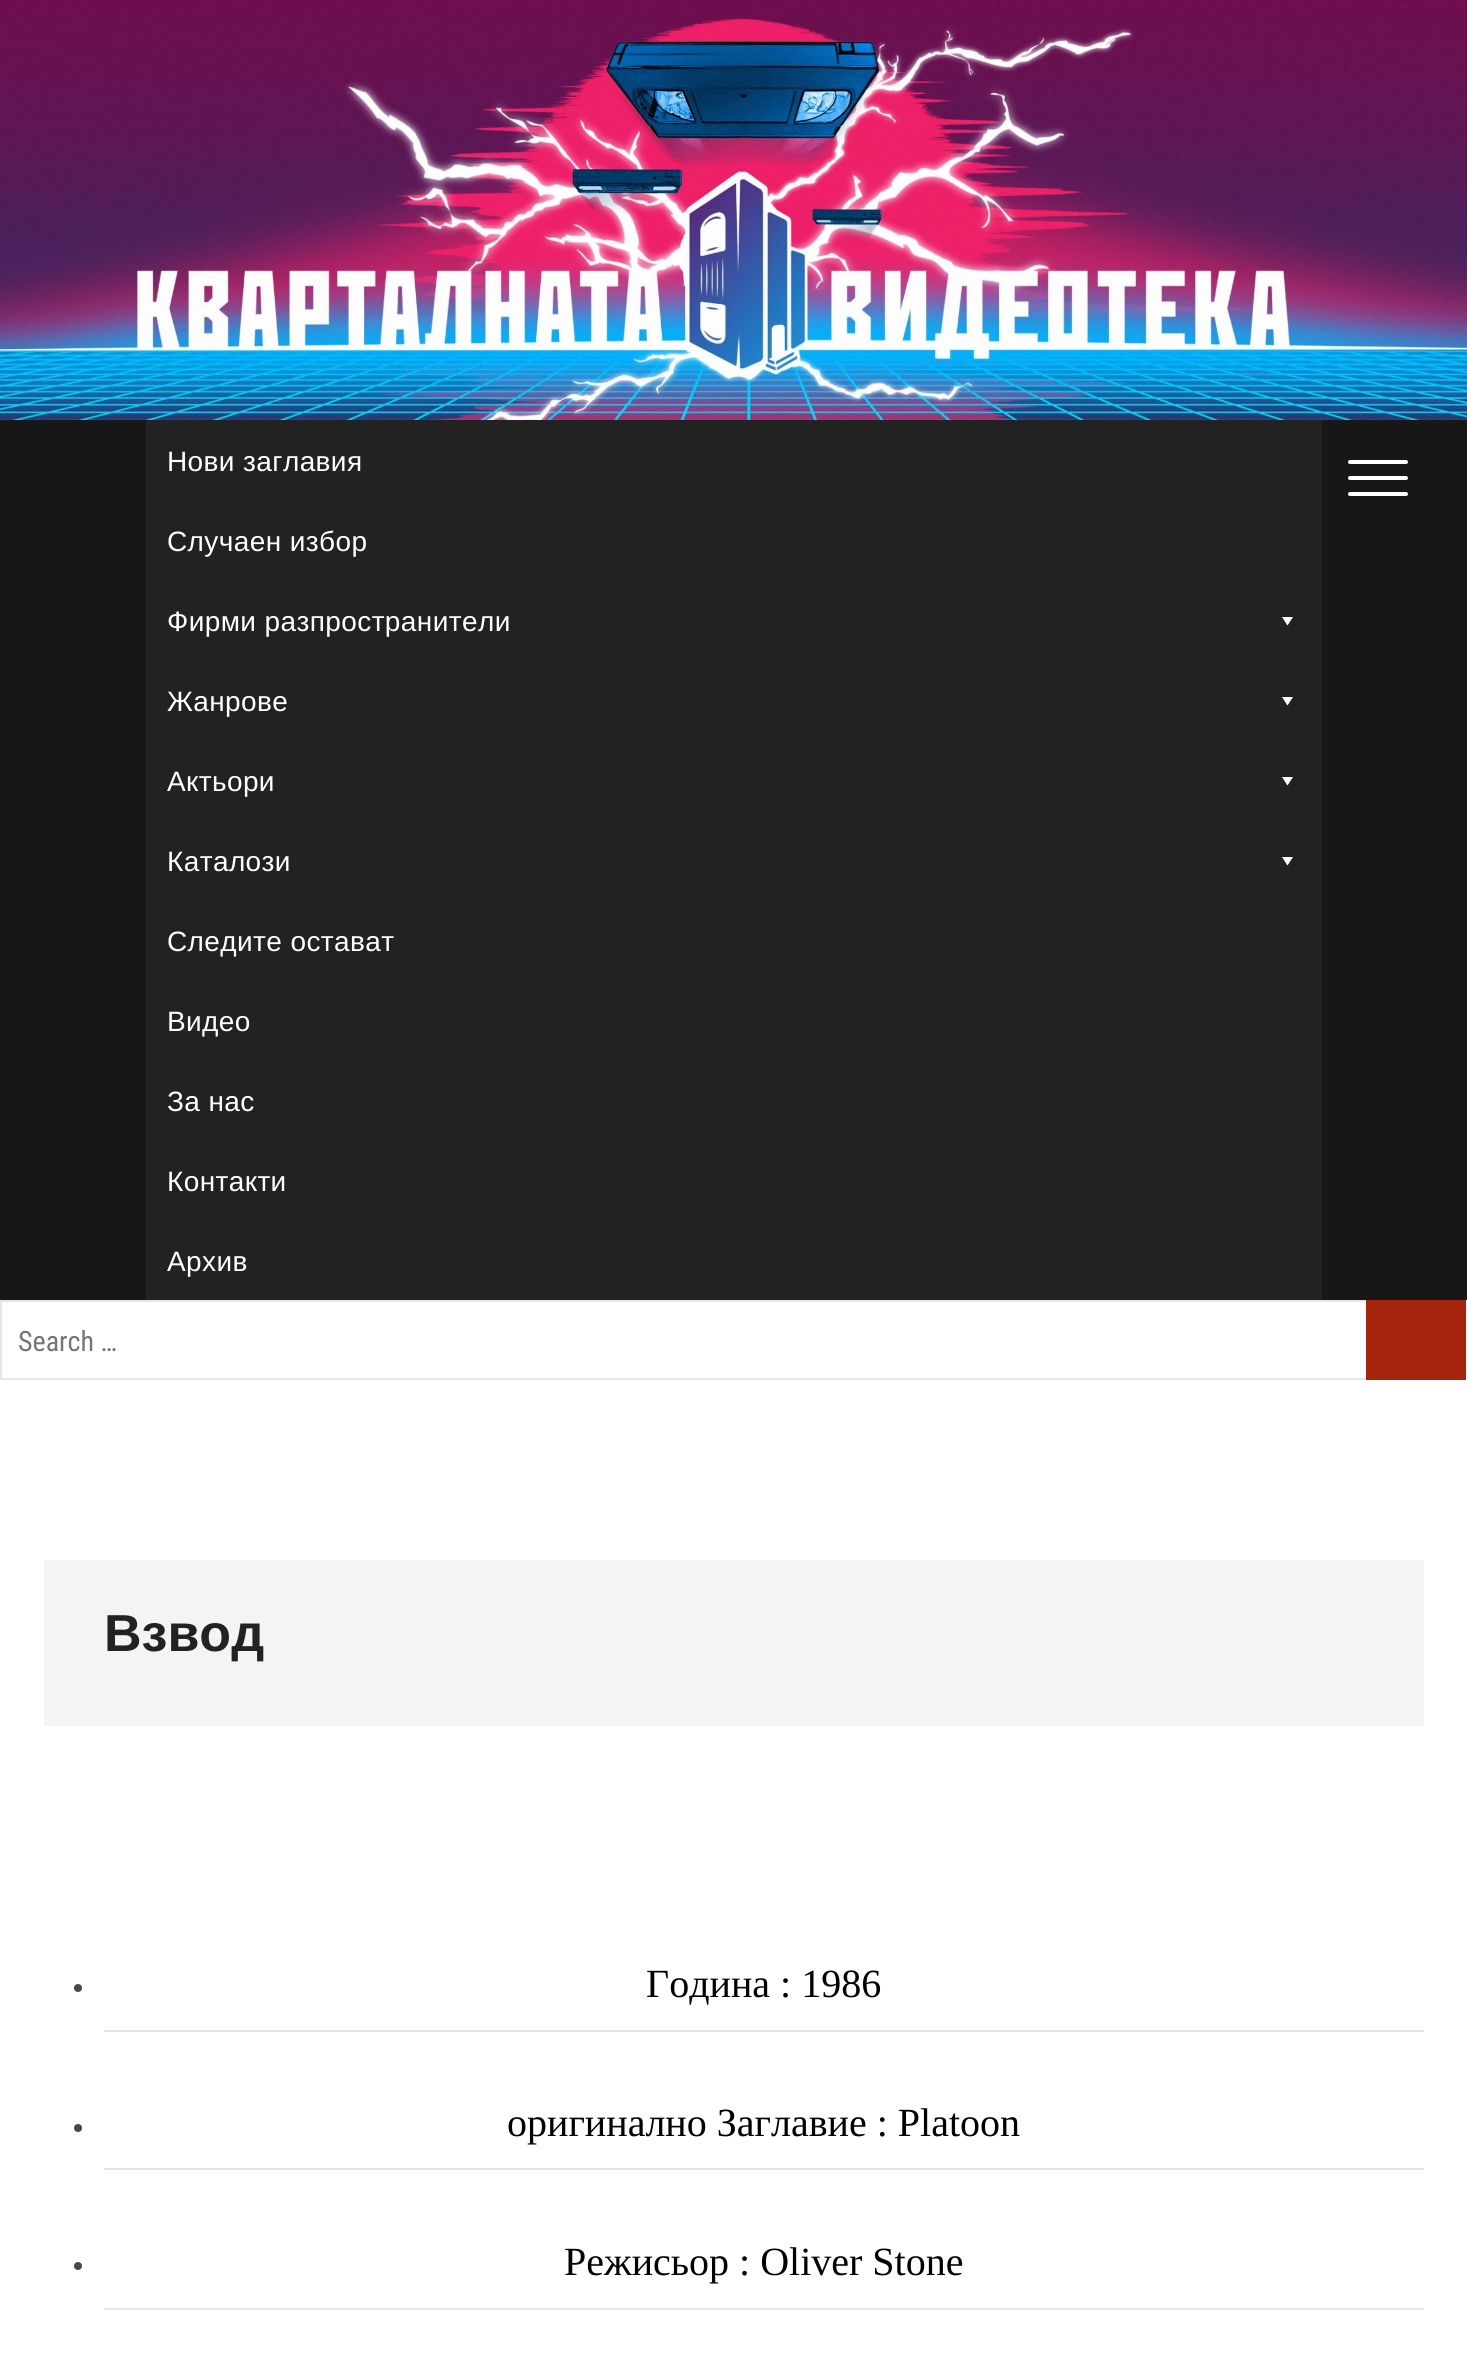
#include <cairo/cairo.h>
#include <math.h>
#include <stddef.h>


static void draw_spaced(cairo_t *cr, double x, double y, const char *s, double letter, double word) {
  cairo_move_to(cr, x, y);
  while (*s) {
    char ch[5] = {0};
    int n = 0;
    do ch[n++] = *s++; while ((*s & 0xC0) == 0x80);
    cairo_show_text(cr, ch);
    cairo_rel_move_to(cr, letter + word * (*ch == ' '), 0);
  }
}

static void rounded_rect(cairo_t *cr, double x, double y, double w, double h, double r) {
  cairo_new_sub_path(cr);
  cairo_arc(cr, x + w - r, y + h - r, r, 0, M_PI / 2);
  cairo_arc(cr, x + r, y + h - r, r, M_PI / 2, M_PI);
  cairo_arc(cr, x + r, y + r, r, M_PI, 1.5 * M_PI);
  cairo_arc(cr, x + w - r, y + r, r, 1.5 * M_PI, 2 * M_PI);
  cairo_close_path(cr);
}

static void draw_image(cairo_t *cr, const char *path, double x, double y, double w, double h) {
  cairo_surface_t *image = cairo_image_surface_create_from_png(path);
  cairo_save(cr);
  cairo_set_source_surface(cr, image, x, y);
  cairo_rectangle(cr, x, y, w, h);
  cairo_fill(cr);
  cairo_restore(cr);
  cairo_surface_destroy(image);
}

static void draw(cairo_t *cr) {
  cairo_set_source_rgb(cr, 1, 1, 1);
  cairo_paint(cr);
  draw_image(cr, "images/1.png", 0, 0, 1467, 420);
  cairo_set_source_rgb(cr, 23 / 255.0, 23 / 255.0, 23 / 255.0);
  cairo_rectangle(cr, 0, 420, 1467, 880);
  cairo_fill(cr);
  cairo_set_source_rgb(cr, 34 / 255.0, 34 / 255.0, 34 / 255.0);
  cairo_rectangle(cr, 146, 420, 1176, 880);
  cairo_fill(cr);
  cairo_set_source_rgb(cr, 1, 1, 1);
  cairo_new_path(cr);
  cairo_move_to(cr, 1293, 617);
  cairo_line_to(cr, 1287.5, 625.5);
  cairo_line_to(cr, 1282, 617);
  cairo_close_path(cr);
  cairo_fill(cr);
  cairo_new_path(cr);
  cairo_move_to(cr, 1293, 697);
  cairo_line_to(cr, 1287.5, 705.5);
  cairo_line_to(cr, 1282, 697);
  cairo_close_path(cr);
  cairo_fill(cr);
  cairo_new_path(cr);
  cairo_move_to(cr, 1293, 777);
  cairo_line_to(cr, 1287.5, 785.5);
  cairo_line_to(cr, 1282, 777);
  cairo_close_path(cr);
  cairo_fill(cr);
  cairo_new_path(cr);
  cairo_move_to(cr, 1293, 857);
  cairo_line_to(cr, 1287.5, 865.5);
  cairo_line_to(cr, 1282, 857);
  cairo_close_path(cr);
  cairo_fill(cr);
  rounded_rect(cr, 1348, 476, 60, 4, 2);
  cairo_fill(cr);
  rounded_rect(cr, 1348, 460, 60, 4, 2);
  cairo_fill(cr);
  rounded_rect(cr, 1348, 492, 60, 4, 2);
  cairo_fill(cr);
  cairo_rectangle(cr, 1, 1301, 1366, 78);
  cairo_set_source_rgb(cr, 230 / 255.0, 230 / 255.0, 230 / 255.0);
  cairo_stroke(cr);
  cairo_set_source_rgb(cr, 165 / 255.0, 36 / 255.0, 13 / 255.0);
  cairo_rectangle(cr, 1366, 1300, 100, 80);
  cairo_fill(cr);
  cairo_set_source_rgb(cr, 244 / 255.0, 244 / 255.0, 244 / 255.0);
  cairo_rectangle(cr, 44, 1560, 1380, 166);
  cairo_fill(cr);
  cairo_set_source_rgb(cr, 72 / 255.0, 72 / 255.0, 72 / 255.0);
  cairo_arc(cr, 78, 1988, 4, 0, 2 * M_PI);
  cairo_fill(cr);
  cairo_set_source_rgb(cr, 230 / 255.0, 230 / 255.0, 230 / 255.0);
  cairo_rectangle(cr, 104, 2030, 1320, 2);
  cairo_fill(cr);
  cairo_set_source_rgb(cr, 72 / 255.0, 72 / 255.0, 72 / 255.0);
  cairo_arc(cr, 78, 2128, 4, 0, 2 * M_PI);
  cairo_fill(cr);
  cairo_set_source_rgb(cr, 230 / 255.0, 230 / 255.0, 230 / 255.0);
  cairo_rectangle(cr, 104, 2168, 1320, 2);
  cairo_fill(cr);
  cairo_set_source_rgb(cr, 72 / 255.0, 72 / 255.0, 72 / 255.0);
  cairo_arc(cr, 78, 2266, 4, 0, 2 * M_PI);
  cairo_fill(cr);
  cairo_set_source_rgb(cr, 230 / 255.0, 230 / 255.0, 230 / 255.0);
  cairo_rectangle(cr, 104, 2308, 1320, 2);
  cairo_fill(cr);
  cairo_select_font_face(cr, "Liberation Sans", CAIRO_FONT_SLANT_NORMAL, CAIRO_FONT_WEIGHT_NORMAL);
  cairo_set_font_size(cr, 28);
  cairo_set_source_rgb(cr, 1, 1, 1);
  draw_spaced(cr, 167, 471, "Нови заглавия", 0.4, 0);
  draw_spaced(cr, 167, 551, "Случаен избор", 0.4, 0);
  draw_spaced(cr, 167, 631, "Фирми разпространители", 0.4, 0);
  draw_spaced(cr, 167, 711, "Жанрове", 0.4, 0);
  draw_spaced(cr, 167, 791, "Актьори", 0.4, 0);
  draw_spaced(cr, 167, 871, "Каталози", 0.4, 0);
  draw_spaced(cr, 167, 951, "Следите остават", 0.4, 0);
  draw_spaced(cr, 167, 1031, "Видео", 0.4, 0);
  draw_spaced(cr, 167, 1111, "За нас", 0.4, 0);
  draw_spaced(cr, 167, 1191, "Контакти", 0.4, 0);
  draw_spaced(cr, 167, 1271, "Архив", 0.4, 0);
  cairo_select_font_face(cr, "Roboto Condensed", CAIRO_FONT_SLANT_NORMAL, CAIRO_FONT_WEIGHT_NORMAL);
  cairo_set_source_rgb(cr, 117 / 255.0, 117 / 255.0, 117 / 255.0);
  cairo_move_to(cr, 18, 1351);
  cairo_show_text(cr, "Search …");
  cairo_select_font_face(cr, "Liberation Sans", CAIRO_FONT_SLANT_NORMAL, CAIRO_FONT_WEIGHT_BOLD);
  cairo_set_font_size(cr, 52);
  cairo_set_source_rgb(cr, 34 / 255.0, 34 / 255.0, 34 / 255.0);
  cairo_move_to(cr, 104, 1651);
  cairo_show_text(cr, "Взвод");
  cairo_select_font_face(cr, "Liberation Serif", CAIRO_FONT_SLANT_NORMAL, CAIRO_FONT_WEIGHT_NORMAL);
  cairo_set_font_size(cr, 40);
  cairo_set_source_rgb(cr, 0, 0, 0);
  cairo_move_to(cr, 646, 1997);
  cairo_show_text(cr, "Година : 1986");
  cairo_move_to(cr, 507, 2136);
  cairo_show_text(cr, "оригинално Заглавие : Platoon");
  cairo_move_to(cr, 564, 2275);
  cairo_show_text(cr, "Режисьор : Oliver Stone");
}

int main(void) {
  cairo_surface_t *surface = cairo_image_surface_create(CAIRO_FORMAT_RGB24, 1467, 2378);
  cairo_t *cr = cairo_create(surface);
  cairo_font_options_t *options = cairo_font_options_create();
  cairo_font_options_set_hint_metrics(options, CAIRO_HINT_METRICS_OFF);
  cairo_font_options_set_hint_style(options, CAIRO_HINT_STYLE_NONE);
  cairo_set_font_options(cr, options);
  cairo_set_miter_limit(cr, 4);
  draw(cr);
  cairo_surface_write_to_png(surface, "out.png");
  cairo_font_options_destroy(options);
  cairo_destroy(cr);
  cairo_surface_destroy(surface);
  return 0;
}
